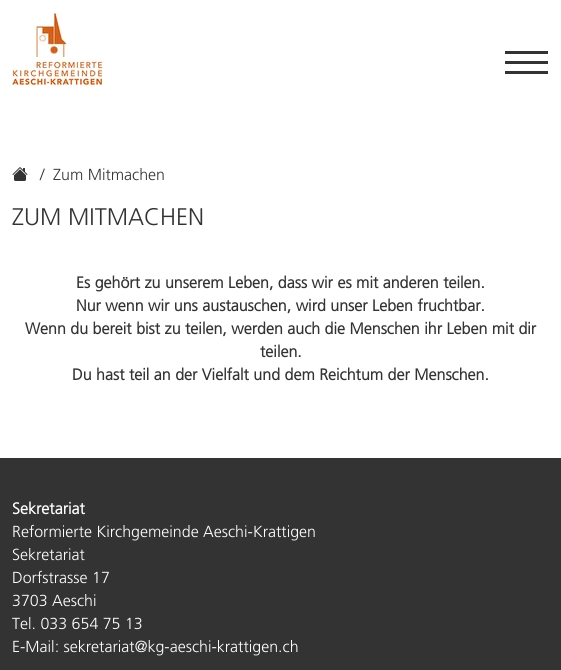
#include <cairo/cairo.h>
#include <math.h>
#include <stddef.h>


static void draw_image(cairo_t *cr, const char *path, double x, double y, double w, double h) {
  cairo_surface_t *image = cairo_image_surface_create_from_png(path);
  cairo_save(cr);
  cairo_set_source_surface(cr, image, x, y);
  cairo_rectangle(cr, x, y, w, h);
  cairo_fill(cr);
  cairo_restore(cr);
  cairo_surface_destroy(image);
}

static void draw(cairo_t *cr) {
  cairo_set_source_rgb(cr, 1, 1, 1);
  cairo_paint(cr);
  draw_image(cr, "images/1.png", 12, 13, 93, 73);
  cairo_set_source_rgb(cr, 51 / 255.0, 51 / 255.0, 51 / 255.0);
  cairo_rectangle(cr, 505, 61, 43, 3);
  cairo_fill(cr);
  cairo_rectangle(cr, 505, 51, 43, 3);
  cairo_fill(cr);
  cairo_rectangle(cr, 505, 71, 43, 3);
  cairo_fill(cr);
  draw_image(cr, "images/2.png", 12, 167, 16, 14);
  cairo_rectangle(cr, 0, 458, 561, 212);
  cairo_fill(cr);
  cairo_select_font_face(cr, "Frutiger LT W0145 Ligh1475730 Light", CAIRO_FONT_SLANT_NORMAL, CAIRO_FONT_WEIGHT_NORMAL);
  cairo_set_font_size(cr, 16);
  cairo_move_to(cr, 40, 180);
  cairo_show_text(cr, "/");
  cairo_move_to(cr, 53, 180);
  cairo_show_text(cr, "Zum Mitmachen");
  cairo_set_font_size(cr, 24);
  cairo_move_to(cr, 12, 225);
  cairo_show_text(cr, "ZUM MITMACHEN");
  cairo_select_font_face(cr, "Frutiger LT W0145 Ligh1475730", CAIRO_FONT_SLANT_NORMAL, CAIRO_FONT_WEIGHT_BOLD);
  cairo_set_font_size(cr, 16);
  cairo_move_to(cr, 76, 288);
  cairo_show_text(cr, "Es gehört zu unserem Leben, dass wir es mit anderen teilen.");
  cairo_move_to(cr, 76, 311);
  cairo_show_text(cr, "Nur wenn wir uns austauschen, wird unser Leben fruchtbar.");
  cairo_move_to(cr, 25, 334);
  cairo_show_text(cr, "Wenn du bereit bist zu teilen, werden auch die Menschen ihr Leben mit dir");
  cairo_move_to(cr, 260, 357);
  cairo_show_text(cr, "teilen.");
  cairo_move_to(cr, 72, 380);
  cairo_show_text(cr, "Du hast teil an der Vielfalt und dem Reichtum der Menschen.");
  cairo_set_source_rgb(cr, 1, 1, 1);
  cairo_move_to(cr, 12, 514);
  cairo_show_text(cr, "Sekretariat");
  cairo_select_font_face(cr, "Frutiger LT W0145 Ligh1475730 Light", CAIRO_FONT_SLANT_NORMAL, CAIRO_FONT_WEIGHT_NORMAL);
  cairo_move_to(cr, 12, 537);
  cairo_show_text(cr, "Reformierte Kirchgemeinde Aeschi-Krattigen");
  cairo_move_to(cr, 12, 560);
  cairo_show_text(cr, "Sekretariat");
  cairo_move_to(cr, 12, 583);
  cairo_show_text(cr, "Dorfstrasse 17");
  cairo_move_to(cr, 12, 606);
  cairo_show_text(cr, "3703 Aeschi");
  cairo_move_to(cr, 12, 629);
  cairo_show_text(cr, "Tel. 033 654 75 13");
  cairo_move_to(cr, 12, 652);
  cairo_show_text(cr, "E-Mail: sekretariat@kg-aeschi-krattigen.ch");
}

int main(void) {
  cairo_surface_t *surface = cairo_image_surface_create(CAIRO_FORMAT_RGB24, 561, 670);
  cairo_t *cr = cairo_create(surface);
  cairo_font_options_t *options = cairo_font_options_create();
  cairo_font_options_set_hint_metrics(options, CAIRO_HINT_METRICS_OFF);
  cairo_font_options_set_hint_style(options, CAIRO_HINT_STYLE_NONE);
  cairo_set_font_options(cr, options);
  cairo_set_miter_limit(cr, 4);
  draw(cr);
  cairo_surface_write_to_png(surface, "out.png");
  cairo_font_options_destroy(options);
  cairo_destroy(cr);
  cairo_surface_destroy(surface);
  return 0;
}
